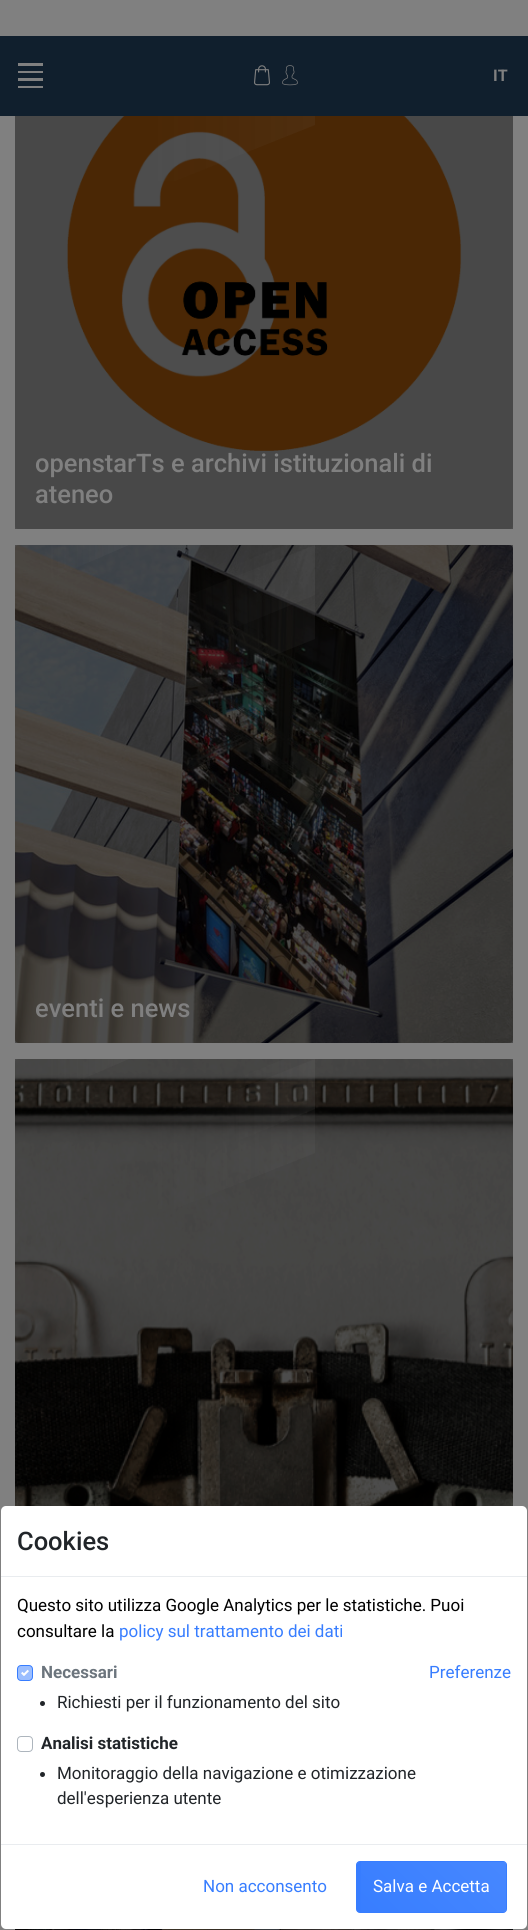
#include <cairo/cairo.h>
#include <math.h>
#include <stddef.h>


static void rounded_rect(cairo_t *cr, double x, double y, double w, double h, double r) {
  cairo_new_sub_path(cr);
  cairo_arc(cr, x + w - r, y + h - r, r, 0, M_PI / 2);
  cairo_arc(cr, x + r, y + h - r, r, M_PI / 2, M_PI);
  cairo_arc(cr, x + r, y + r, r, M_PI, 1.5 * M_PI);
  cairo_arc(cr, x + w - r, y + r, r, 1.5 * M_PI, 2 * M_PI);
  cairo_close_path(cr);
}

static void draw_image(cairo_t *cr, const char *path, double x, double y, double w, double h) {
  cairo_surface_t *image = cairo_image_surface_create_from_png(path);
  cairo_save(cr);
  cairo_set_source_surface(cr, image, x, y);
  cairo_rectangle(cr, x, y, w, h);
  cairo_fill(cr);
  cairo_restore(cr);
  cairo_surface_destroy(image);
}

static void draw(cairo_t *cr) {
  cairo_pattern_t *gradient;
  cairo_set_source_rgb(cr, 128 / 255.0, 128 / 255.0, 128 / 255.0);
  cairo_paint(cr);
  draw_image(cr, "images/3.png", 15, 116, 498, 413);
  cairo_set_source_rgba(cr, 0, 0, 0, 0.4);
  cairo_rectangle(cr, 15, 116, 498, 413);
  cairo_fill(cr);
  gradient = cairo_pattern_create_linear(15, 106, 315, 106);
  cairo_pattern_add_color_stop_rgba(gradient, 0.45, 128 / 255.0, 128 / 255.0, 128 / 255.0, 0);
  cairo_pattern_add_color_stop_rgba(gradient, 1, 128 / 255.0, 128 / 255.0, 128 / 255.0, 0.08);
  cairo_set_source(cr, gradient);
  cairo_pattern_destroy(gradient);
  cairo_new_path(cr);
  cairo_move_to(cr, 315, 125);
  cairo_line_to(cr, 315, 31);
  cairo_line_to(cr, 15, 150);
  cairo_line_to(cr, 15, 181);
  cairo_line_to(cr, 175, 181);
  cairo_close_path(cr);
  cairo_fill(cr);
  cairo_set_source_rgb(cr, 16 / 255.0, 31 / 255.0, 45 / 255.0);
  cairo_rectangle(cr, 0, 36, 528, 80);
  cairo_fill(cr);
  cairo_set_source_rgb(cr, 128 / 255.0, 128 / 255.0, 128 / 255.0);
  cairo_rectangle(cr, 18, 63, 25, 3);
  cairo_fill(cr);
  cairo_rectangle(cr, 18, 71, 25, 2);
  cairo_fill(cr);
  cairo_rectangle(cr, 18, 78, 25, 3);
  cairo_fill(cr);
  cairo_rectangle(cr, 18, 86, 25, 2);
  cairo_fill(cr);
  draw_image(cr, "images/1.png", 254, 65, 16, 21);
  draw_image(cr, "images/2.png", 282, 65, 16, 21);
  draw_image(cr, "images/4.png", 15, 545, 498, 498);
  cairo_set_source_rgba(cr, 0, 0, 0, 0.4);
  cairo_rectangle(cr, 15, 545, 498, 498);
  cairo_fill(cr);
  gradient = cairo_pattern_create_linear(15, 620, 315, 620);
  cairo_pattern_add_color_stop_rgba(gradient, 0.45, 128 / 255.0, 128 / 255.0, 128 / 255.0, 0);
  cairo_pattern_add_color_stop_rgba(gradient, 1, 128 / 255.0, 128 / 255.0, 128 / 255.0, 0.08);
  cairo_set_source(cr, gradient);
  cairo_pattern_destroy(gradient);
  cairo_new_path(cr);
  cairo_move_to(cr, 315, 639);
  cairo_line_to(cr, 315, 545);
  cairo_line_to(cr, 15, 664);
  cairo_line_to(cr, 15, 695);
  cairo_line_to(cr, 175, 695);
  cairo_close_path(cr);
  cairo_fill(cr);
  gradient = cairo_pattern_create_linear(15, 569, 129, 569);
  cairo_pattern_add_color_stop_rgba(gradient, 0.29, 128 / 255.0, 128 / 255.0, 128 / 255.0, 0);
  cairo_pattern_add_color_stop_rgba(gradient, 1, 128 / 255.0, 128 / 255.0, 128 / 255.0, 0.1);
  cairo_set_source(cr, gradient);
  cairo_pattern_destroy(gradient);
  cairo_new_path(cr);
  cairo_move_to(cr, 15, 594);
  cairo_line_to(cr, 129, 545);
  cairo_line_to(cr, 15, 545);
  cairo_close_path(cr);
  cairo_fill(cr);
  gradient = cairo_pattern_create_linear(147, 596, 315, 596);
  cairo_pattern_add_color_stop_rgba(gradient, 0.45, 128 / 255.0, 128 / 255.0, 128 / 255.0, 0);
  cairo_pattern_add_color_stop_rgba(gradient, 1, 128 / 255.0, 128 / 255.0, 128 / 255.0, 0.08);
  cairo_set_source(cr, gradient);
  cairo_pattern_destroy(gradient);
  cairo_new_path(cr);
  cairo_move_to(cr, 315, 545);
  cairo_line_to(cr, 284, 545);
  cairo_line_to(cr, 147, 602);
  cairo_line_to(cr, 187, 648);
  cairo_line_to(cr, 315, 595);
  cairo_close_path(cr);
  cairo_fill(cr);
  draw_image(cr, "images/5.png", 15, 1059, 498, 447);
  cairo_set_source_rgba(cr, 0, 0, 0, 0.4);
  cairo_rectangle(cr, 15, 1059, 498, 447);
  cairo_fill(cr);
  gradient = cairo_pattern_create_linear(15, 1134, 315, 1134);
  cairo_pattern_add_color_stop_rgba(gradient, 0.45, 128 / 255.0, 128 / 255.0, 128 / 255.0, 0);
  cairo_pattern_add_color_stop_rgba(gradient, 1, 128 / 255.0, 128 / 255.0, 128 / 255.0, 0.08);
  cairo_set_source(cr, gradient);
  cairo_pattern_destroy(gradient);
  cairo_new_path(cr);
  cairo_move_to(cr, 315, 1153);
  cairo_line_to(cr, 315, 1059);
  cairo_line_to(cr, 15, 1178);
  cairo_line_to(cr, 15, 1209);
  cairo_line_to(cr, 175, 1209);
  cairo_close_path(cr);
  cairo_fill(cr);
  gradient = cairo_pattern_create_linear(15, 1083, 129, 1083);
  cairo_pattern_add_color_stop_rgba(gradient, 0.29, 128 / 255.0, 128 / 255.0, 128 / 255.0, 0);
  cairo_pattern_add_color_stop_rgba(gradient, 1, 128 / 255.0, 128 / 255.0, 128 / 255.0, 0.1);
  cairo_set_source(cr, gradient);
  cairo_pattern_destroy(gradient);
  cairo_new_path(cr);
  cairo_move_to(cr, 15, 1108);
  cairo_line_to(cr, 129, 1059);
  cairo_line_to(cr, 15, 1059);
  cairo_close_path(cr);
  cairo_fill(cr);
  gradient = cairo_pattern_create_linear(147, 1110, 315, 1110);
  cairo_pattern_add_color_stop_rgba(gradient, 0.45, 128 / 255.0, 128 / 255.0, 128 / 255.0, 0);
  cairo_pattern_add_color_stop_rgba(gradient, 1, 128 / 255.0, 128 / 255.0, 128 / 255.0, 0.08);
  cairo_set_source(cr, gradient);
  cairo_pattern_destroy(gradient);
  cairo_new_path(cr);
  cairo_move_to(cr, 315, 1059);
  cairo_line_to(cr, 284, 1059);
  cairo_line_to(cr, 147, 1116);
  cairo_line_to(cr, 187, 1162);
  cairo_line_to(cr, 315, 1109);
  cairo_close_path(cr);
  cairo_fill(cr);
  draw_image(cr, "images/6.png", 15, 1929, 498, 1);
  cairo_set_source_rgba(cr, 0, 0, 0, 0.4);
  cairo_rectangle(cr, 15, 1929, 498, 1);
  cairo_fill(cr);
  cairo_set_source_rgb(cr, 1, 1, 1);
  rounded_rect(cr, 1, 1506, 526, 423, 5);
  cairo_fill(cr);
  cairo_set_source_rgb(cr, 233 / 255.0, 236 / 255.0, 239 / 255.0);
  cairo_rectangle(cr, 1, 1576, 526, 1);
  cairo_fill(cr);
  cairo_set_source_rgb(cr, 155 / 255.0, 190 / 255.0, 1);
  rounded_rect(cr, 17.5, 1665.5, 15, 15, 3.5);
  cairo_fill_preserve(cr);
  cairo_set_source_rgb(cr, 55 / 255.0, 125 / 255.0, 1);
  cairo_set_line_width(cr, 1);
  cairo_stroke(cr);
  draw_image(cr, "images/7.png", 21, 1669, 8, 7);
  cairo_set_source_rgb(cr, 33 / 255.0, 37 / 255.0, 41 / 255.0);
  cairo_arc(cr, 42.5, 1703.5, 2.5, 0, 2 * M_PI);
  cairo_fill(cr);
  rounded_rect(cr, 17.5, 1736.5, 15, 15, 3.5);
  cairo_set_source_rgb(cr, 173 / 255.0, 181 / 255.0, 189 / 255.0);
  cairo_stroke(cr);
  cairo_set_source_rgb(cr, 33 / 255.0, 37 / 255.0, 41 / 255.0);
  cairo_arc(cr, 42.5, 1774.5, 2.5, 0, 2 * M_PI);
  cairo_fill(cr);
  cairo_set_source_rgb(cr, 233 / 255.0, 236 / 255.0, 239 / 255.0);
  cairo_rectangle(cr, 1, 1844, 526, 1);
  cairo_fill(cr);
  gradient = cairo_pattern_create_linear(214, 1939, 317, 1836);
  cairo_pattern_add_color_stop_rgba(gradient, 0, 1, 1, 1, 0);
  cairo_pattern_add_color_stop_rgba(gradient, 1, 1, 1, 1, 0.08);
  cairo_set_source(cr, gradient);
  cairo_pattern_destroy(gradient);
  cairo_rectangle(cr, 205, 1880, 122, 12);
  cairo_fill(cr);
  cairo_set_source_rgb(cr, 55 / 255.0, 125 / 255.0, 1);
  rounded_rect(cr, 356.5, 1861.5, 150, 51, 3.5);
  cairo_fill_preserve(cr);
  cairo_stroke(cr);
  gradient = cairo_pattern_create_linear(382, 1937, 481, 1837);
  cairo_pattern_add_color_stop_rgba(gradient, 0, 1, 1, 1, 0);
  cairo_pattern_add_color_stop_rgba(gradient, 1, 1, 1, 1, 0.08);
  cairo_set_source(cr, gradient);
  cairo_pattern_destroy(gradient);
  cairo_rectangle(cr, 361, 1862, 145, 50);
  cairo_fill(cr);
  cairo_select_font_face(cr, "Roboto", CAIRO_FONT_SLANT_NORMAL, CAIRO_FONT_WEIGHT_BOLD);
  cairo_set_font_size(cr, 16);
  cairo_set_source_rgb(cr, 128 / 255.0, 128 / 255.0, 128 / 255.0);
  cairo_move_to(cr, 493, 81);
  cairo_show_text(cr, "IT");
  cairo_select_font_face(cr, "Roboto Medium", CAIRO_FONT_SLANT_NORMAL, CAIRO_FONT_WEIGHT_NORMAL);
  cairo_set_font_size(cr, 25.5);
  cairo_move_to(cr, 35, 472);
  cairo_show_text(cr, "openstarTs e archivi istituzionali di");
  cairo_move_to(cr, 35, 503);
  cairo_show_text(cr, "ateneo");
  cairo_move_to(cr, 35, 1017);
  cairo_show_text(cr, "eventi e news");
  cairo_set_source_rgb(cr, 33 / 255.0, 37 / 255.0, 41 / 255.0);
  cairo_move_to(cr, 17, 1550);
  cairo_show_text(cr, "Cookies");
  cairo_select_font_face(cr, "Roboto", CAIRO_FONT_SLANT_NORMAL, CAIRO_FONT_WEIGHT_NORMAL);
  cairo_set_font_size(cr, 17);
  cairo_set_source_rgb(cr, 0, 0, 0);
  cairo_move_to(cr, 17, 1611);
  cairo_show_text(cr, "Questo sito utilizza Google Analytics per le statistiche. Puoi");
  cairo_move_to(cr, 17, 1637);
  cairo_show_text(cr, "consultare la");
  cairo_set_source_rgb(cr, 55 / 255.0, 125 / 255.0, 1);
  cairo_move_to(cr, 119, 1637);
  cairo_show_text(cr, "policy sul trattamento dei dati");
  cairo_select_font_face(cr, "Roboto", CAIRO_FONT_SLANT_NORMAL, CAIRO_FONT_WEIGHT_BOLD);
  cairo_set_source_rgb(cr, 108 / 255.0, 117 / 255.0, 125 / 255.0);
  cairo_move_to(cr, 41, 1678);
  cairo_show_text(cr, "Necessari");
  cairo_select_font_face(cr, "Roboto", CAIRO_FONT_SLANT_NORMAL, CAIRO_FONT_WEIGHT_NORMAL);
  cairo_set_source_rgb(cr, 33 / 255.0, 37 / 255.0, 41 / 255.0);
  cairo_move_to(cr, 57, 1708);
  cairo_show_text(cr, "Richiesti per il funzionamento del sito");
  cairo_select_font_face(cr, "Roboto", CAIRO_FONT_SLANT_NORMAL, CAIRO_FONT_WEIGHT_BOLD);
  cairo_move_to(cr, 41, 1749);
  cairo_show_text(cr, "Analisi statistiche");
  cairo_select_font_face(cr, "Roboto", CAIRO_FONT_SLANT_NORMAL, CAIRO_FONT_WEIGHT_NORMAL);
  cairo_move_to(cr, 57, 1779);
  cairo_show_text(cr, "Monitoraggio della navigazione e otimizzazione");
  cairo_move_to(cr, 57, 1804);
  cairo_show_text(cr, "dell'esperienza utente");
  cairo_set_source_rgb(cr, 55 / 255.0, 125 / 255.0, 1);
  cairo_move_to(cr, 429, 1678);
  cairo_show_text(cr, "Preferenze");
  cairo_move_to(cr, 203, 1892);
  cairo_show_text(cr, "Non acconsento");
  cairo_set_source_rgb(cr, 1, 1, 1);
  cairo_move_to(cr, 373, 1892);
  cairo_show_text(cr, "Salva e Accetta");
}

int main(void) {
  cairo_surface_t *surface = cairo_image_surface_create(CAIRO_FORMAT_RGB24, 528, 1930);
  cairo_t *cr = cairo_create(surface);
  cairo_font_options_t *options = cairo_font_options_create();
  cairo_font_options_set_hint_metrics(options, CAIRO_HINT_METRICS_OFF);
  cairo_font_options_set_hint_style(options, CAIRO_HINT_STYLE_NONE);
  cairo_set_font_options(cr, options);
  cairo_set_miter_limit(cr, 4);
  draw(cr);
  cairo_surface_write_to_png(surface, "out.png");
  cairo_font_options_destroy(options);
  cairo_destroy(cr);
  cairo_surface_destroy(surface);
  return 0;
}
